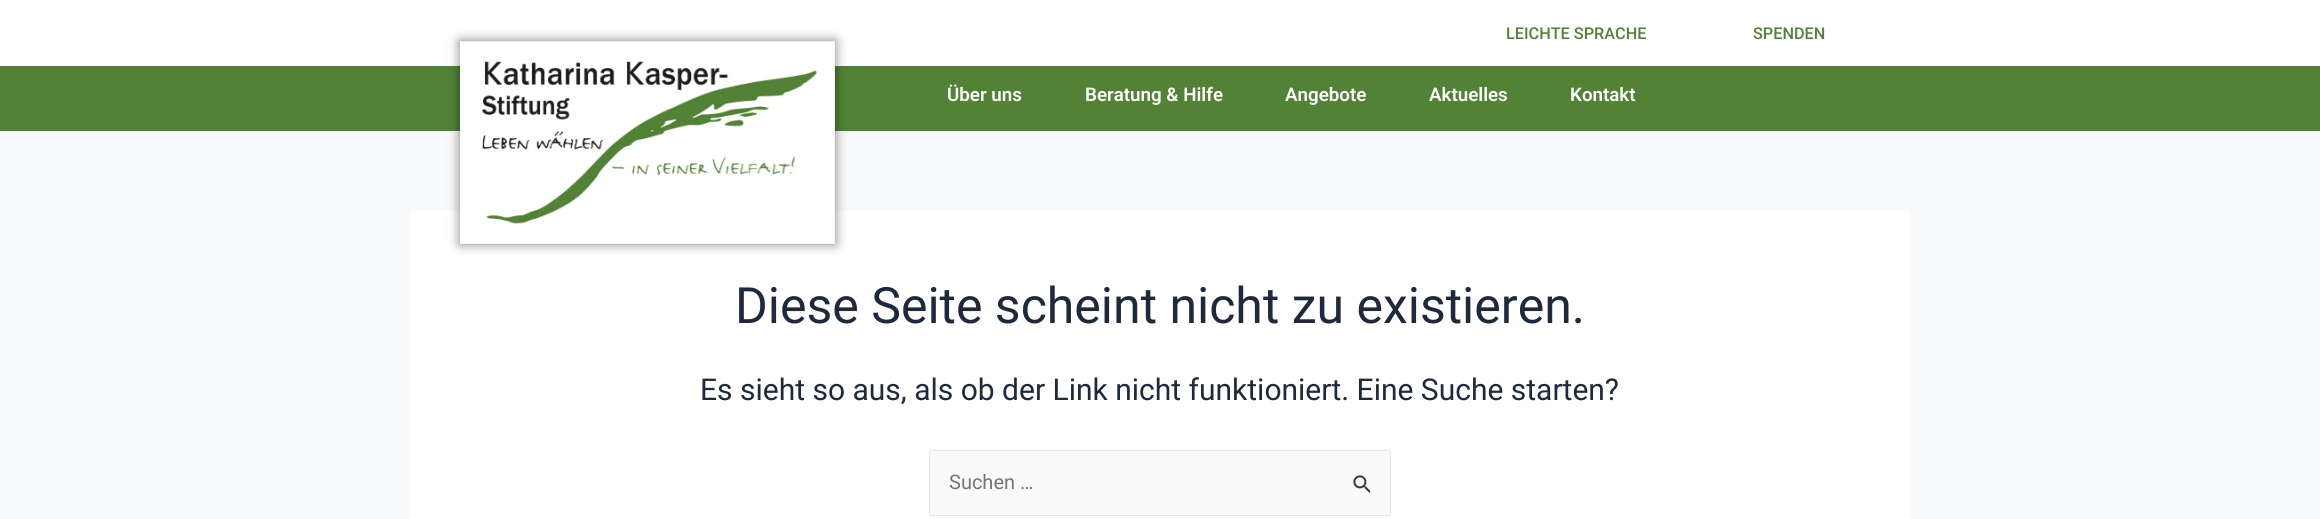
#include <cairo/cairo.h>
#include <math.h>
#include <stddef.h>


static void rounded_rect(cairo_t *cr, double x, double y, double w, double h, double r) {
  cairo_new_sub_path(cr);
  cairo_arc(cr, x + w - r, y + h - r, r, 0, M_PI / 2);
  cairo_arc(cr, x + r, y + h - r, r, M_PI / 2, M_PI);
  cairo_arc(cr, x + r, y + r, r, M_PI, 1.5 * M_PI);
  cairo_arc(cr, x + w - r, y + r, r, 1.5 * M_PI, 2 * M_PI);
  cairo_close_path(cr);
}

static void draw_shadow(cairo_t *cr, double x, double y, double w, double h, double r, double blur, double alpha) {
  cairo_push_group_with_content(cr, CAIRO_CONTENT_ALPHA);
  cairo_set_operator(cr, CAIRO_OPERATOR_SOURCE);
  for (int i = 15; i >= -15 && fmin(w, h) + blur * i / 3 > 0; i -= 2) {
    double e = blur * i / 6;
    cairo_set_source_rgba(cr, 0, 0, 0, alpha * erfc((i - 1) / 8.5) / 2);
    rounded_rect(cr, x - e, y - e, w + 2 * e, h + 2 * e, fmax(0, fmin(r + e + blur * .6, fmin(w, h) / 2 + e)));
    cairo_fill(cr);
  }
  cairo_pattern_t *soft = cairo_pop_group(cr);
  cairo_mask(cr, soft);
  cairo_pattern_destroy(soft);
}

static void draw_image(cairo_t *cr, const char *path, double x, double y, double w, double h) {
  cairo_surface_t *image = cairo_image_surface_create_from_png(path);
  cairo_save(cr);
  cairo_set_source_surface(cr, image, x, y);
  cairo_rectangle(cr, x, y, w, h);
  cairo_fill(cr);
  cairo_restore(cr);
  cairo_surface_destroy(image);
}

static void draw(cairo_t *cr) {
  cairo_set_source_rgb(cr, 249 / 255.0, 250 / 255.0, 251 / 255.0);
  cairo_paint(cr);
  cairo_set_source_rgb(cr, 1, 1, 1);
  cairo_rectangle(cr, 0, 0, 2320, 66);
  cairo_fill(cr);
  cairo_set_source_rgb(cr, 82 / 255.0, 130 / 255.0, 54 / 255.0);
  cairo_rectangle(cr, 0, 66, 2320, 65);
  cairo_fill(cr);
  cairo_set_source_rgb(cr, 1, 1, 1);
  cairo_rectangle(cr, 410, 211, 1500, 308);
  cairo_fill(cr);
  cairo_set_source_rgb(cr, 0, 0, 0);
  draw_shadow(cr, 460, 41, 375, 203, 0, 6, 0.5);
  draw_image(cr, "images/1.png", 460, 41, 375, 203);
  cairo_set_source_rgb(cr, 250 / 255.0, 250 / 255.0, 250 / 255.0);
  rounded_rect(cr, 929.5, 450.5, 461, 65, 2);
  cairo_fill_preserve(cr);
  cairo_set_source_rgb(cr, 226 / 255.0, 232 / 255.0, 240 / 255.0);
  cairo_set_line_width(cr, 1);
  cairo_stroke(cr);
  draw_image(cr, "images/2.png", 1353, 475, 17, 18);
  cairo_select_font_face(cr, "Roboto Medium", CAIRO_FONT_SLANT_NORMAL, CAIRO_FONT_WEIGHT_NORMAL);
  cairo_set_font_size(cr, 16.25);
  cairo_set_source_rgb(cr, 82 / 255.0, 130 / 255.0, 54 / 255.0);
  cairo_move_to(cr, 1506, 39);
  cairo_show_text(cr, "LEICHTE SPRACHE");
  cairo_move_to(cr, 1753, 39);
  cairo_show_text(cr, "SPENDEN");
  cairo_select_font_face(cr, "Roboto SemiBold", CAIRO_FONT_SLANT_NORMAL, CAIRO_FONT_WEIGHT_NORMAL);
  cairo_set_font_size(cr, 18.75);
  cairo_set_source_rgb(cr, 1, 1, 1);
  cairo_move_to(cr, 947, 101);
  cairo_show_text(cr, "Über uns");
  cairo_move_to(cr, 1085, 101);
  cairo_show_text(cr, "Beratung & Hilfe");
  cairo_move_to(cr, 1285, 101);
  cairo_show_text(cr, "Angebote");
  cairo_move_to(cr, 1429, 101);
  cairo_show_text(cr, "Aktuelles");
  cairo_move_to(cr, 1570, 101);
  cairo_show_text(cr, "Kontakt");
  cairo_select_font_face(cr, "Roboto", CAIRO_FONT_SLANT_NORMAL, CAIRO_FONT_WEIGHT_NORMAL);
  cairo_set_font_size(cr, 50);
  cairo_set_source_rgb(cr, 30 / 255.0, 41 / 255.0, 59 / 255.0);
  cairo_move_to(cr, 735, 323);
  cairo_show_text(cr, "Diese Seite scheint nicht zu existieren.");
  cairo_set_font_size(cr, 30);
  cairo_move_to(cr, 700, 400);
  cairo_show_text(cr, "Es sieht so aus, als ob der Link nicht funktioniert. Eine Suche starten?");
  cairo_set_font_size(cr, 20);
  cairo_set_source_rgb(cr, 117 / 255.0, 117 / 255.0, 117 / 255.0);
  cairo_move_to(cr, 949, 489);
  cairo_show_text(cr, "Suchen …");
}

int main(void) {
  cairo_surface_t *surface = cairo_image_surface_create(CAIRO_FORMAT_RGB24, 2320, 519);
  cairo_t *cr = cairo_create(surface);
  cairo_font_options_t *options = cairo_font_options_create();
  cairo_font_options_set_hint_metrics(options, CAIRO_HINT_METRICS_OFF);
  cairo_font_options_set_hint_style(options, CAIRO_HINT_STYLE_NONE);
  cairo_set_font_options(cr, options);
  cairo_set_miter_limit(cr, 4);
  draw(cr);
  cairo_surface_write_to_png(surface, "out.png");
  cairo_font_options_destroy(options);
  cairo_destroy(cr);
  cairo_surface_destroy(surface);
  return 0;
}
